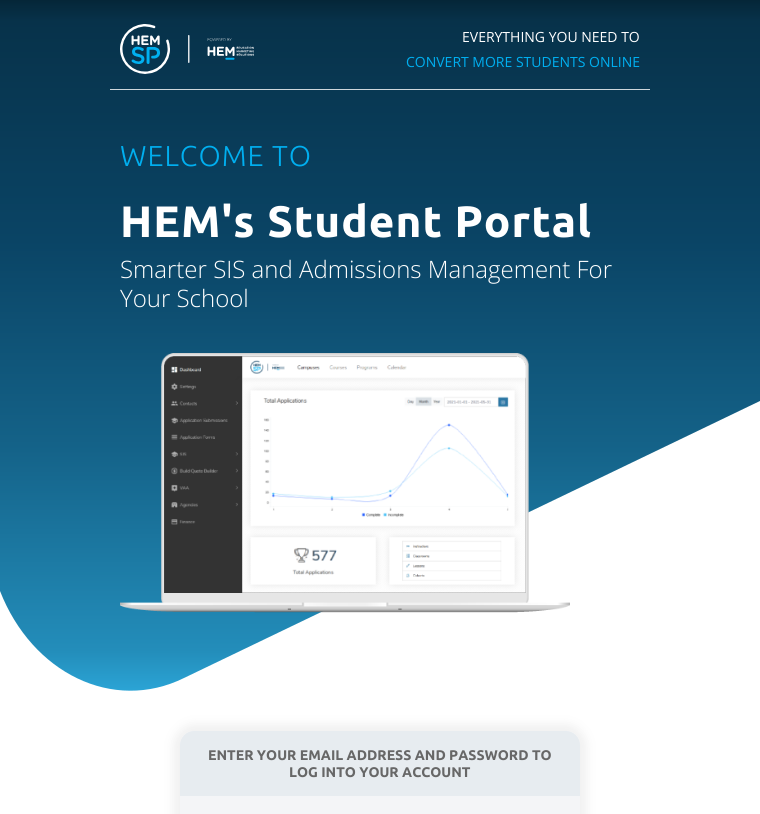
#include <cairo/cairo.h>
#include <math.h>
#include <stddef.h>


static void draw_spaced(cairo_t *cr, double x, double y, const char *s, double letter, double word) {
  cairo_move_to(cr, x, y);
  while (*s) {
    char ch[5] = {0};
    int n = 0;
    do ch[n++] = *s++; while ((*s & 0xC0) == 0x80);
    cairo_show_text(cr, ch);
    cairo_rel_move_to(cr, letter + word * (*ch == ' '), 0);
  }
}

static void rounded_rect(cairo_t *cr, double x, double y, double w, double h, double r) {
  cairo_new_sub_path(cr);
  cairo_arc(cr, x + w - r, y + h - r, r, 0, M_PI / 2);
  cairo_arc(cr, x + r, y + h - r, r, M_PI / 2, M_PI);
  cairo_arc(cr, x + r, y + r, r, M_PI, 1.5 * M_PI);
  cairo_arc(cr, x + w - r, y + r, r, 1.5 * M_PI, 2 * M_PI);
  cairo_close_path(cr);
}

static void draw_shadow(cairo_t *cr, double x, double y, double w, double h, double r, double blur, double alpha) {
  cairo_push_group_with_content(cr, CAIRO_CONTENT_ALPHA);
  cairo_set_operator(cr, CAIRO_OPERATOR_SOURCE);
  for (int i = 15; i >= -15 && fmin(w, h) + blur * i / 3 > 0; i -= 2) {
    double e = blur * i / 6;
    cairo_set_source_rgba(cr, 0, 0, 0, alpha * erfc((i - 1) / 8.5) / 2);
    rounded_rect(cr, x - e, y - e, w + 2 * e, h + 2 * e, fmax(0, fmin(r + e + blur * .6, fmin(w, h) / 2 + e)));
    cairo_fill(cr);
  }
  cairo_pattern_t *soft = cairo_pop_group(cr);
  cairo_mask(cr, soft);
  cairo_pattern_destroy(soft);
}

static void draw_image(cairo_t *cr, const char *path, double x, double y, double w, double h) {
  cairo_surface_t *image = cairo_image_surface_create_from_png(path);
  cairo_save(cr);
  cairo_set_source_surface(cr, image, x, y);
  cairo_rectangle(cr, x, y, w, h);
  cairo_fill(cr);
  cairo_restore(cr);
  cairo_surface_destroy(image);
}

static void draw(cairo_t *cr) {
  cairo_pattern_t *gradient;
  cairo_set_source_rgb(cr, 1, 1, 1);
  cairo_paint(cr);
  gradient = cairo_pattern_create_linear(380, 0, 380, 707);
  cairo_pattern_add_color_stop_rgba(gradient, 0, 5 / 255.0, 38 / 255.0, 56 / 255.0, 1);
  cairo_pattern_add_color_stop_rgba(gradient, 0.03, 7 / 255.0, 50 / 255.0, 74 / 255.0, 1);
  cairo_pattern_add_color_stop_rgba(gradient, 0.34, 10 / 255.0, 68 / 255.0, 101 / 255.0, 1);
  cairo_pattern_add_color_stop_rgba(gradient, 0.63, 20 / 255.0, 98 / 255.0, 136 / 255.0, 1);
  cairo_pattern_add_color_stop_rgba(gradient, 0.92, 35 / 255.0, 141 / 255.0, 186 / 255.0, 1);
  cairo_pattern_add_color_stop_rgba(gradient, 1, 46 / 255.0, 173 / 255.0, 224 / 255.0, 1);
  cairo_set_source(cr, gradient);
  cairo_pattern_destroy(gradient);
  cairo_rectangle(cr, 0, 0, 760, 691);
  cairo_fill(cr);
  cairo_set_source_rgb(cr, 206 / 255.0, 215 / 255.0, 220 / 255.0);
  cairo_rectangle(cr, 110, 89, 540, 1);
  cairo_fill(cr);
  draw_image(cr, "images/1.png", 120, 24, 134, 50);
  cairo_set_source_rgb(cr, 1, 1, 1);
  cairo_new_path(cr);
  cairo_move_to(cr, 184, 678);
  cairo_curve_to(cr, 113, 713, 32, 673, 0, 591);
  cairo_line_to(cr, 0, 709);
  cairo_line_to(cr, 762, 709);
  cairo_line_to(cr, 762, 400);
  cairo_close_path(cr);
  cairo_fill(cr);
  draw_image(cr, "images/2.png", 120, 353, 450, 260);
  cairo_set_source_rgb(cr, 111 / 255.0, 111 / 255.0, 111 / 255.0);
  draw_shadow(cr, 173, 724, 414, 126, 21, 5, 0.1);
  cairo_set_source_rgb(cr, 244 / 255.0, 245 / 255.0, 247 / 255.0);
  rounded_rect(cr, 180, 731, 400, 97, 14);
  cairo_fill(cr);
  cairo_set_source_rgb(cr, 231 / 255.0, 236 / 255.0, 240 / 255.0);
  cairo_new_path(cr);
  cairo_move_to(cr, 194, 731);
  cairo_line_to(cr, 566, 731);
  cairo_curve_to(cr, 573.5, 731, 580, 737.5, 580, 745);
  cairo_line_to(cr, 580, 796);
  cairo_line_to(cr, 180, 796);
  cairo_line_to(cr, 180, 745);
  cairo_curve_to(cr, 180, 737.5, 186.5, 731, 194, 731);
  cairo_close_path(cr);
  cairo_fill(cr);
  cairo_select_font_face(cr, "Open Sans", CAIRO_FONT_SLANT_NORMAL, CAIRO_FONT_WEIGHT_NORMAL);
  cairo_set_font_size(cr, 14);
  cairo_set_source_rgb(cr, 1, 1, 1);
  cairo_move_to(cr, 462, 42);
  cairo_show_text(cr, "EVERYTHING YOU NEED TO");
  cairo_set_source_rgb(cr, 0, 175 / 255.0, 240 / 255.0);
  cairo_move_to(cr, 406, 67);
  cairo_show_text(cr, "CONVERT MORE STUDENTS ONLINE");
  cairo_select_font_face(cr, "Ubuntu Light", CAIRO_FONT_SLANT_NORMAL, CAIRO_FONT_WEIGHT_NORMAL);
  cairo_set_font_size(cr, 28.75);
  draw_spaced(cr, 120, 166, "WELCOME TO", 1, 0);
  cairo_select_font_face(cr, "Ubuntu", CAIRO_FONT_SLANT_NORMAL, CAIRO_FONT_WEIGHT_BOLD);
  cairo_set_font_size(cr, 44);
  cairo_set_source_rgb(cr, 1, 1, 1);
  draw_spaced(cr, 120, 237, "HEM's Student Portal", 1, 0);
  cairo_select_font_face(cr, "Open Sans Light", CAIRO_FONT_SLANT_NORMAL, CAIRO_FONT_WEIGHT_NORMAL);
  cairo_set_font_size(cr, 24);
  cairo_move_to(cr, 120, 278);
  cairo_show_text(cr, "Smarter SIS and Admissions Management For");
  cairo_move_to(cr, 120, 307);
  cairo_show_text(cr, "Your School");
  cairo_select_font_face(cr, "Ubuntu", CAIRO_FONT_SLANT_NORMAL, CAIRO_FONT_WEIGHT_BOLD);
  cairo_set_font_size(cr, 14);
  cairo_set_source_rgb(cr, 103 / 255.0, 103 / 255.0, 103 / 255.0);
  cairo_move_to(cr, 208, 760);
  cairo_show_text(cr, "ENTER YOUR EMAIL ADDRESS AND PASSWORD TO");
  cairo_move_to(cr, 289, 777);
  cairo_show_text(cr, "LOG INTO YOUR ACCOUNT");
}

int main(void) {
  cairo_surface_t *surface = cairo_image_surface_create(CAIRO_FORMAT_RGB24, 760, 814);
  cairo_t *cr = cairo_create(surface);
  cairo_font_options_t *options = cairo_font_options_create();
  cairo_font_options_set_hint_metrics(options, CAIRO_HINT_METRICS_OFF);
  cairo_font_options_set_hint_style(options, CAIRO_HINT_STYLE_NONE);
  cairo_set_font_options(cr, options);
  cairo_set_miter_limit(cr, 4);
  draw(cr);
  cairo_surface_write_to_png(surface, "out.png");
  cairo_font_options_destroy(options);
  cairo_destroy(cr);
  cairo_surface_destroy(surface);
  return 0;
}
